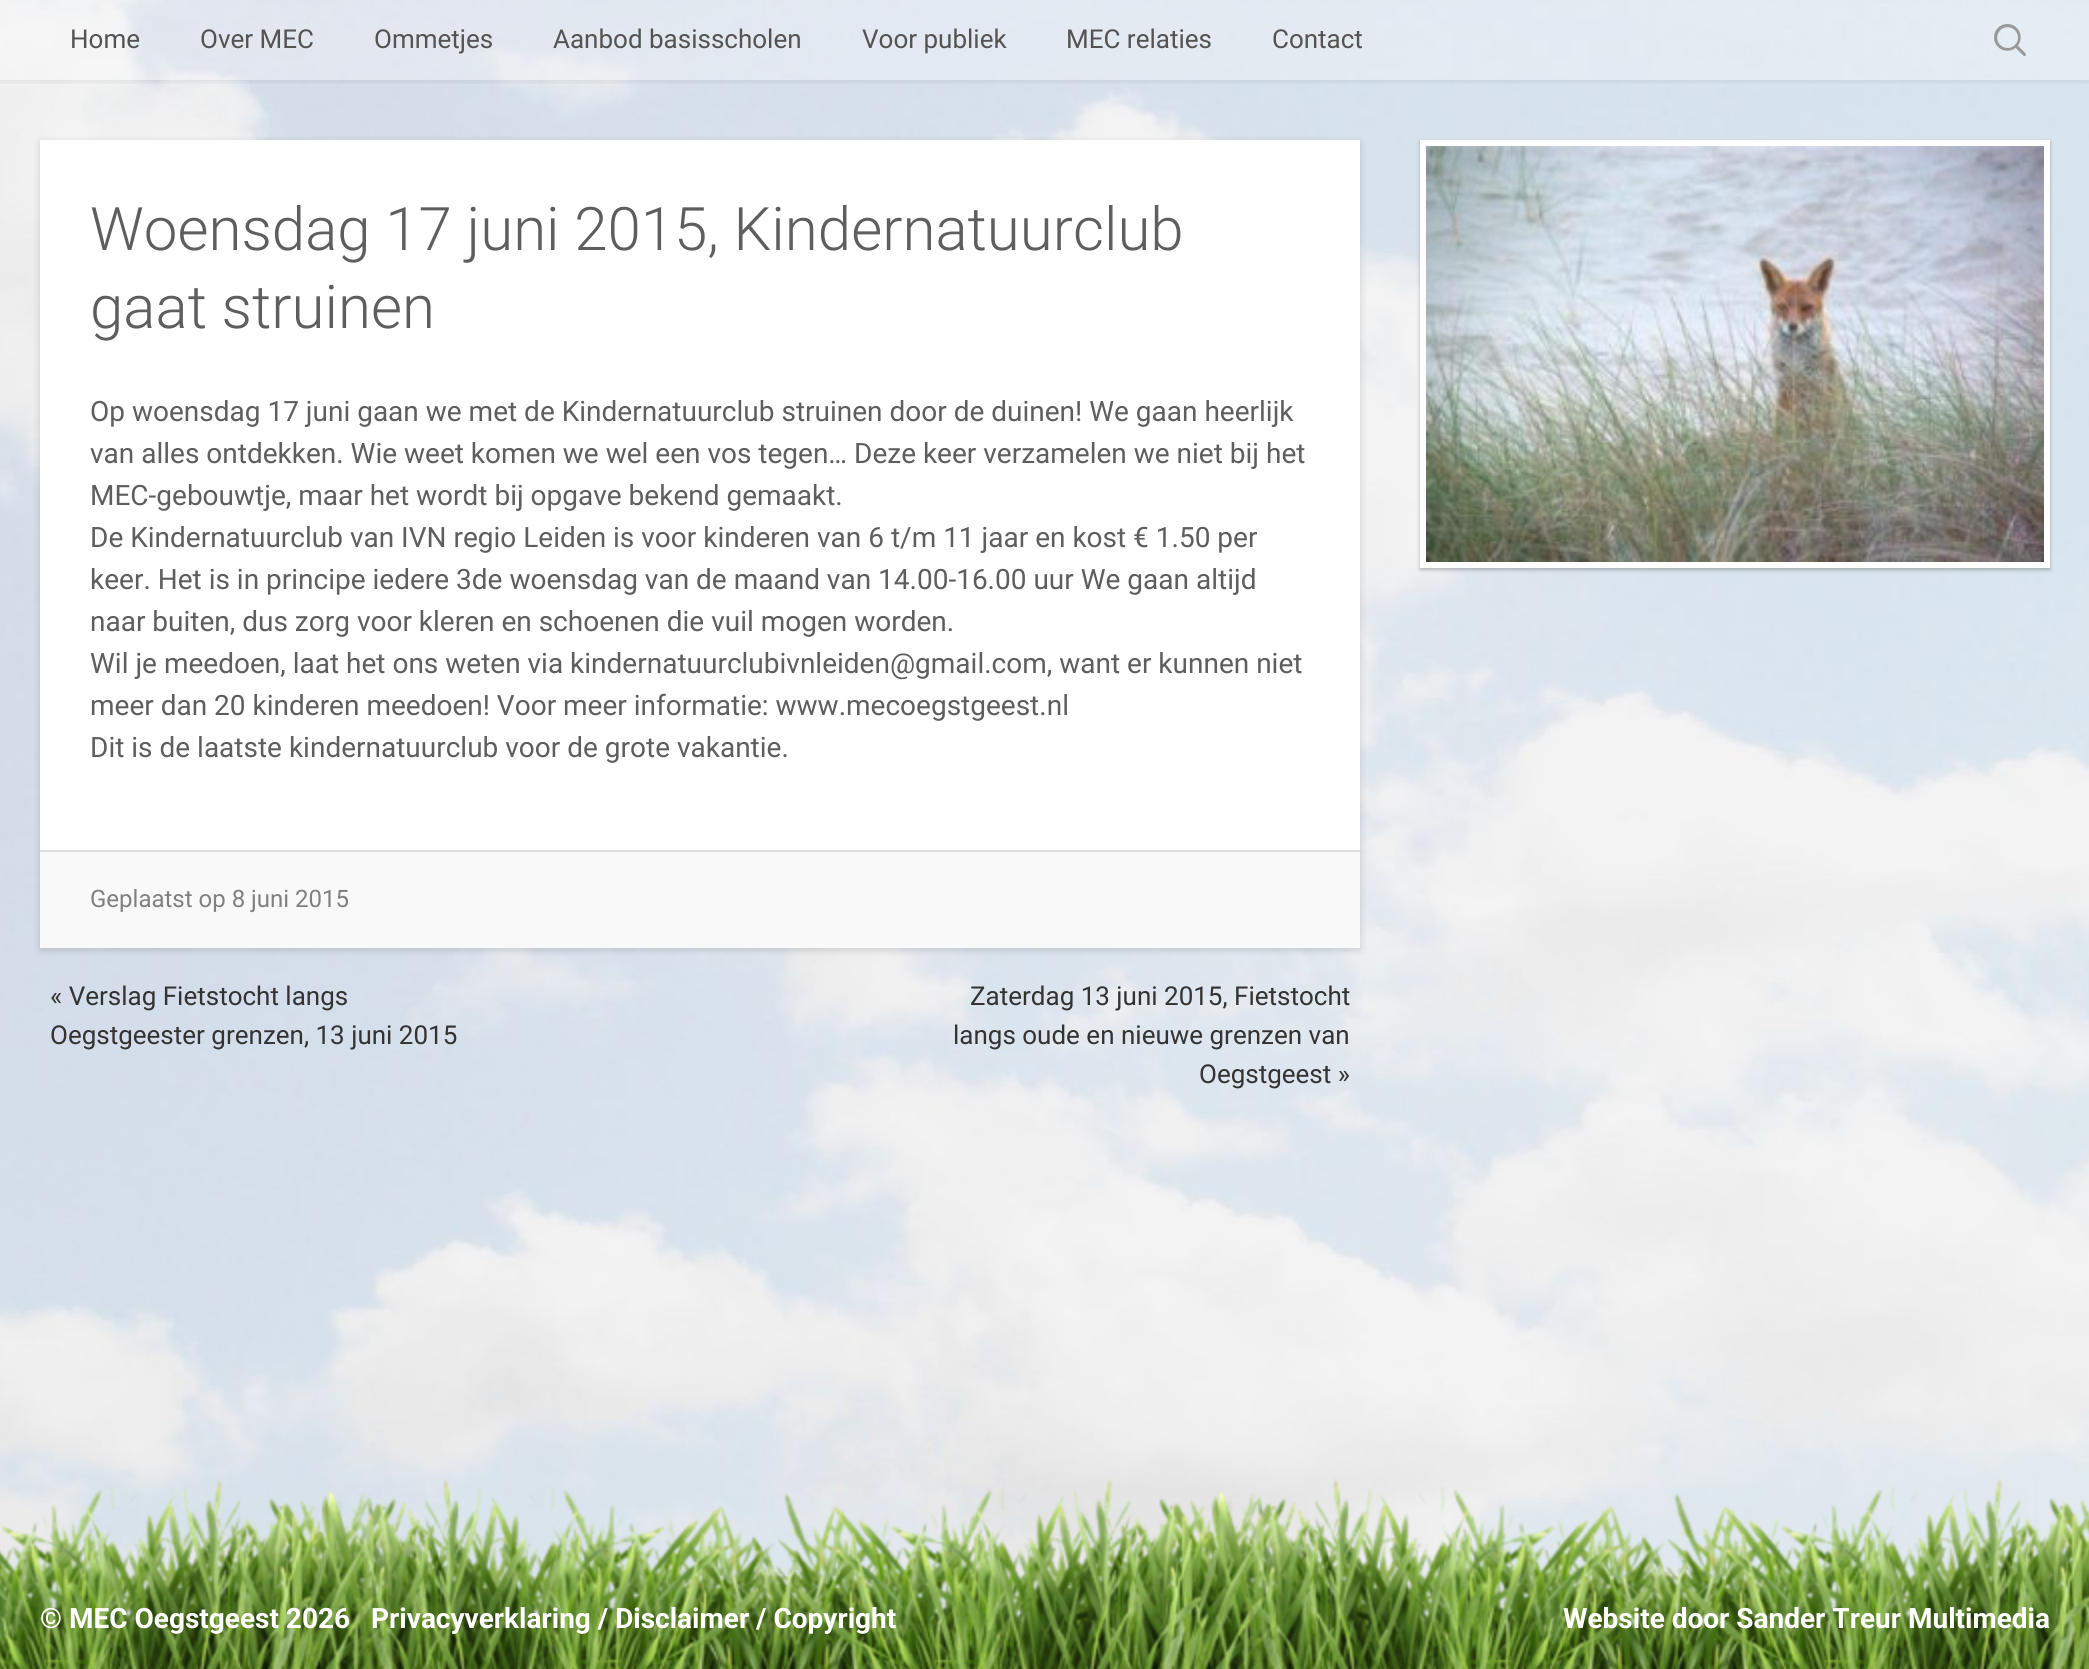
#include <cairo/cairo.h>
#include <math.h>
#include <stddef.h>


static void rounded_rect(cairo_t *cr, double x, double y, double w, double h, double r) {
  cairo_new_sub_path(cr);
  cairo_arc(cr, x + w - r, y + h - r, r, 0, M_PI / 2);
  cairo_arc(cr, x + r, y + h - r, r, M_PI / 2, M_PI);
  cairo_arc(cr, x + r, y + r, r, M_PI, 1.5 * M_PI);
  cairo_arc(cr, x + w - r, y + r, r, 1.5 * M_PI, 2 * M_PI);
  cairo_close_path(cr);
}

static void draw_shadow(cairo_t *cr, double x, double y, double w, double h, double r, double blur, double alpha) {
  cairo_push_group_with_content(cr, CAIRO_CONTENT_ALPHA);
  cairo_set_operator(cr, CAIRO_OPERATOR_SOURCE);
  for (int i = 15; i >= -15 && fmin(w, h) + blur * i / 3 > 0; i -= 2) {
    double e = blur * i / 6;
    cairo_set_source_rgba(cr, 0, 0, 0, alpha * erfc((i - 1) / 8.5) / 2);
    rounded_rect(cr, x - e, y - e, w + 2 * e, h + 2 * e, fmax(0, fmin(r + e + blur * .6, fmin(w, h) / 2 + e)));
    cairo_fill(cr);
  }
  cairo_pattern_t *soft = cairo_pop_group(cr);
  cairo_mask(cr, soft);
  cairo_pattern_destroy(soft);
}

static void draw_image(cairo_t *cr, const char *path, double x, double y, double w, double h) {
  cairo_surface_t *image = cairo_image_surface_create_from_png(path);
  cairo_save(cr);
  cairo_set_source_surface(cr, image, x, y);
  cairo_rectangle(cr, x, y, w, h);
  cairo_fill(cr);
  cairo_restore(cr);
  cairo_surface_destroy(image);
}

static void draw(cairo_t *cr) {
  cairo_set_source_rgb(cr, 1, 1, 1);
  cairo_paint(cr);
  draw_image(cr, "images/1.png", 0, 0, 2089, 1618);
  cairo_save(cr);
  cairo_rectangle(cr, 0, 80, 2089, 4);
  cairo_clip(cr);
  cairo_set_source_rgb(cr, 0, 0, 0);
  draw_shadow(cr, 0, 0, 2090, 80, 0, 5, 0.1);
  cairo_restore(cr);
  cairo_set_source_rgba(cr, 1, 1, 1, 0.3);
  cairo_rectangle(cr, 0, 0, 2089, 80);
  cairo_fill(cr);
  draw_image(cr, "images/2.png", 1994, 24, 32, 32);
  cairo_set_source_rgb(cr, 0, 0, 0);
  draw_shadow(cr, 40, 142, 1320, 808, 0, 4, 0.15);
  cairo_set_source_rgb(cr, 1, 1, 1);
  cairo_rectangle(cr, 40, 140, 1320, 710);
  cairo_fill(cr);
  cairo_set_source_rgb(cr, 249 / 255.0, 249 / 255.0, 249 / 255.0);
  cairo_rectangle(cr, 40, 852, 1320, 96);
  cairo_fill(cr);
  cairo_set_source_rgb(cr, 222 / 255.0, 222 / 255.0, 222 / 255.0);
  cairo_rectangle(cr, 40, 850, 1320, 2);
  cairo_fill(cr);
  cairo_set_source_rgb(cr, 0, 0, 0);
  draw_shadow(cr, 1420, 142, 630, 428, 0, 2, 0.25);
  cairo_set_source_rgb(cr, 1, 1, 1);
  cairo_rectangle(cr, 1420, 140, 630, 428);
  cairo_fill(cr);
  draw_image(cr, "images/3.png", 1426, 146, 618, 416);
  draw_image(cr, "images/4.png", 0, 1478, 2089, 191);
  cairo_select_font_face(cr, "Roboto", CAIRO_FONT_SLANT_NORMAL, CAIRO_FONT_WEIGHT_NORMAL);
  cairo_set_font_size(cr, 26);
  cairo_set_source_rgb(cr, 83 / 255.0, 83 / 255.0, 83 / 255.0);
  cairo_move_to(cr, 70, 48);
  cairo_show_text(cr, "Home");
  cairo_move_to(cr, 200, 48);
  cairo_show_text(cr, "Over MEC");
  cairo_move_to(cr, 374, 48);
  cairo_show_text(cr, "Ommetjes");
  cairo_move_to(cr, 553, 48);
  cairo_show_text(cr, "Aanbod basisscholen");
  cairo_move_to(cr, 862, 48);
  cairo_show_text(cr, "Voor publiek");
  cairo_move_to(cr, 1066, 48);
  cairo_show_text(cr, "MEC relaties");
  cairo_move_to(cr, 1272, 48);
  cairo_show_text(cr, "Contact");
  cairo_select_font_face(cr, "Roboto Light", CAIRO_FONT_SLANT_NORMAL, CAIRO_FONT_WEIGHT_NORMAL);
  cairo_set_font_size(cr, 60);
  cairo_set_source_rgb(cr, 94 / 255.0, 94 / 255.0, 94 / 255.0);
  cairo_move_to(cr, 90, 250);
  cairo_show_text(cr, "Woensdag 17 juni 2015, Kindernatuurclub");
  cairo_move_to(cr, 90, 328);
  cairo_show_text(cr, "gaat struinen");
  cairo_select_font_face(cr, "Roboto", CAIRO_FONT_SLANT_NORMAL, CAIRO_FONT_WEIGHT_NORMAL);
  cairo_set_font_size(cr, 28);
  cairo_move_to(cr, 90, 421);
  cairo_show_text(cr, "Op woensdag 17 juni gaan we met de Kindernatuurclub struinen door de duinen! We gaan heerlijk");
  cairo_move_to(cr, 90, 463);
  cairo_show_text(cr, "van alles ontdekken. Wie weet komen we wel een vos tegen… Deze keer verzamelen we niet bij het");
  cairo_move_to(cr, 90, 505);
  cairo_show_text(cr, "MEC-gebouwtje, maar het wordt bij opgave bekend gemaakt.");
  cairo_move_to(cr, 90, 547);
  cairo_show_text(cr, "De Kindernatuurclub van IVN regio Leiden is voor kinderen van 6 t/m 11 jaar en kost € 1.50 per");
  cairo_move_to(cr, 90, 589);
  cairo_show_text(cr, "keer. Het is in principe iedere 3de woensdag van de maand van 14.00-16.00 uur We gaan altijd");
  cairo_move_to(cr, 90, 631);
  cairo_show_text(cr, "naar buiten, dus zorg voor kleren en schoenen die vuil mogen worden.");
  cairo_move_to(cr, 90, 673);
  cairo_show_text(cr, "Wil je meedoen, laat het ons weten via kindernatuurclubivnleiden@gmail.com, want er kunnen niet");
  cairo_move_to(cr, 90, 715);
  cairo_show_text(cr, "meer dan 20 kinderen meedoen! Voor meer informatie: www.mecoegstgeest.nl");
  cairo_move_to(cr, 90, 757);
  cairo_show_text(cr, "Dit is de laatste kindernatuurclub voor de grote vakantie.");
  cairo_set_font_size(cr, 24);
  cairo_set_source_rgb(cr, 128 / 255.0, 128 / 255.0, 128 / 255.0);
  cairo_move_to(cr, 90, 907);
  cairo_show_text(cr, "Geplaatst op 8 juni 2015");
  cairo_set_font_size(cr, 26);
  cairo_set_source_rgb(cr, 51 / 255.0, 51 / 255.0, 51 / 255.0);
  cairo_move_to(cr, 50, 1005);
  cairo_show_text(cr, "« Verslag Fietstocht langs");
  cairo_move_to(cr, 50, 1044);
  cairo_show_text(cr, "Oegstgeester grenzen, 13 juni 2015");
  cairo_move_to(cr, 970, 1005);
  cairo_show_text(cr, "Zaterdag 13 juni 2015, Fietstocht");
  cairo_move_to(cr, 953, 1044);
  cairo_show_text(cr, "langs oude en nieuwe grenzen van");
  cairo_move_to(cr, 1199, 1083);
  cairo_show_text(cr, "Oegstgeest »");
  cairo_select_font_face(cr, "Roboto", CAIRO_FONT_SLANT_NORMAL, CAIRO_FONT_WEIGHT_BOLD);
  cairo_set_font_size(cr, 28);
  cairo_set_source_rgb(cr, 1, 1, 1);
  cairo_move_to(cr, 40, 1628);
  cairo_show_text(cr, "© MEC Oegstgeest 2026");
  cairo_move_to(cr, 371, 1628);
  cairo_show_text(cr, "Privacyverklaring / Disclaimer / Copyright");
  cairo_move_to(cr, 1563, 1628);
  cairo_show_text(cr, "Website door Sander Treur Multimedia");
}

int main(void) {
  cairo_surface_t *surface = cairo_image_surface_create(CAIRO_FORMAT_RGB24, 2089, 1669);
  cairo_t *cr = cairo_create(surface);
  cairo_font_options_t *options = cairo_font_options_create();
  cairo_font_options_set_hint_metrics(options, CAIRO_HINT_METRICS_OFF);
  cairo_font_options_set_hint_style(options, CAIRO_HINT_STYLE_NONE);
  cairo_set_font_options(cr, options);
  cairo_set_miter_limit(cr, 4);
  draw(cr);
  cairo_surface_write_to_png(surface, "out.png");
  cairo_font_options_destroy(options);
  cairo_destroy(cr);
  cairo_surface_destroy(surface);
  return 0;
}
